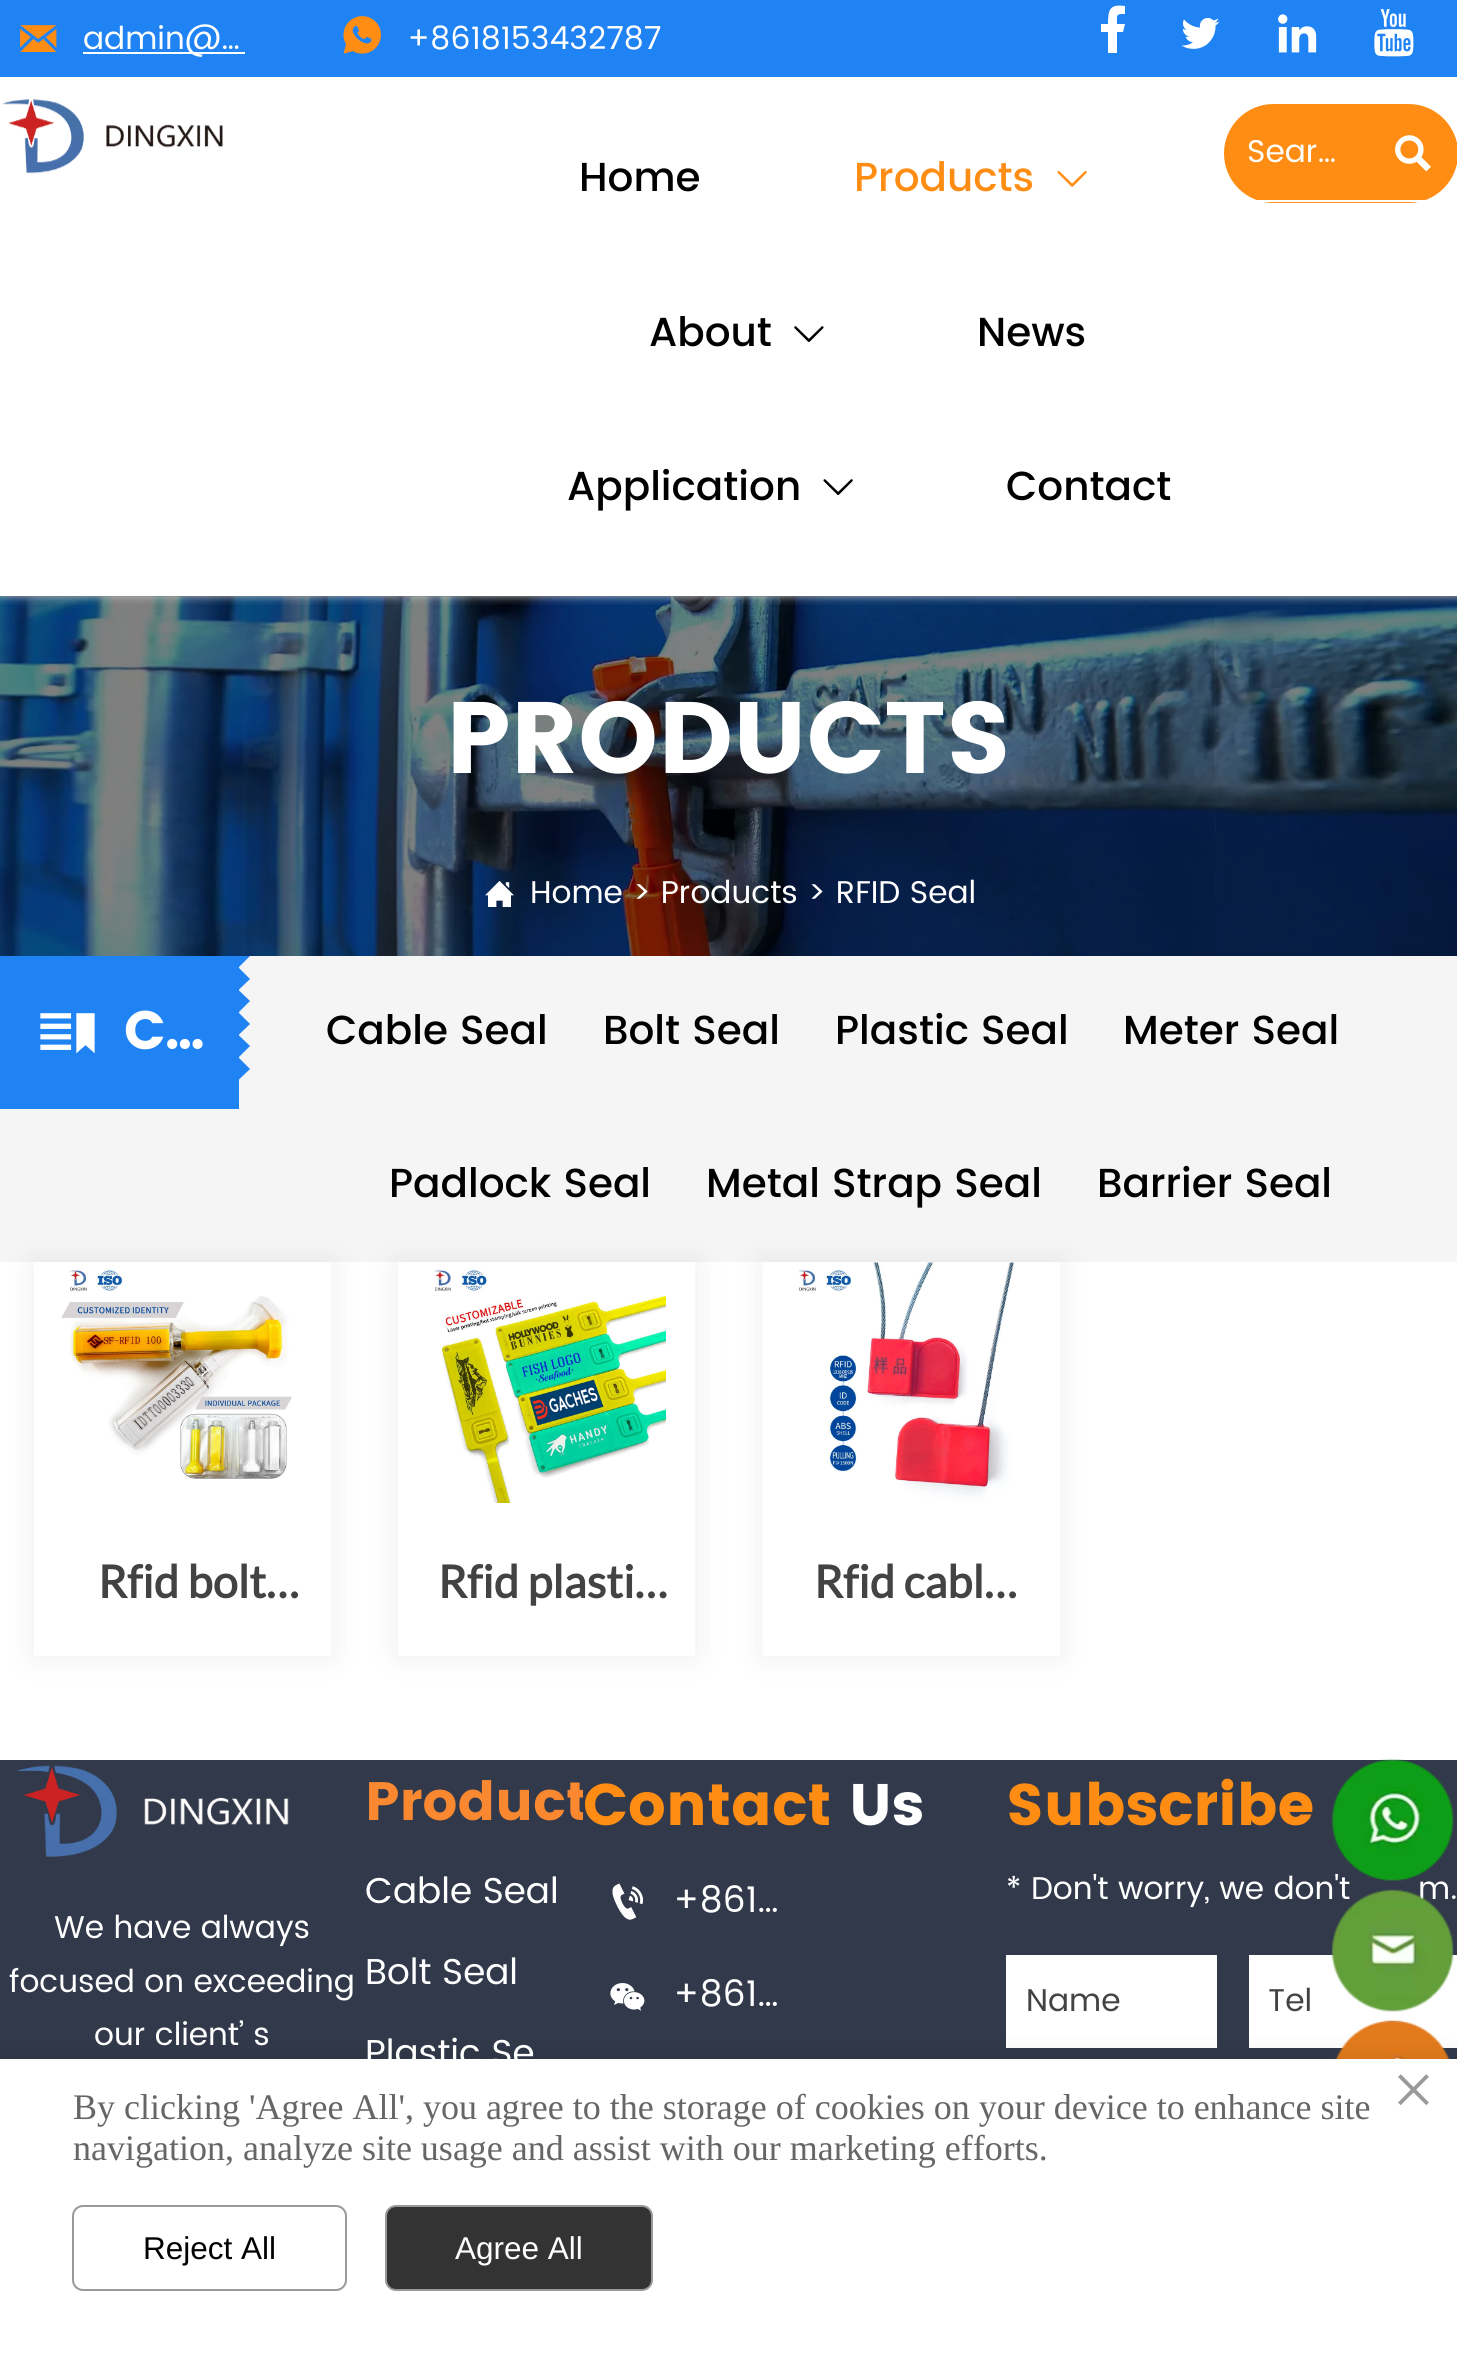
#include <cairo/cairo.h>
#include <math.h>
#include <stddef.h>


static void rounded_rect(cairo_t *cr, double x, double y, double w, double h, double r) {
  cairo_new_sub_path(cr);
  cairo_arc(cr, x + w - r, y + h - r, r, 0, M_PI / 2);
  cairo_arc(cr, x + r, y + h - r, r, M_PI / 2, M_PI);
  cairo_arc(cr, x + r, y + r, r, M_PI, 1.5 * M_PI);
  cairo_arc(cr, x + w - r, y + r, r, 1.5 * M_PI, 2 * M_PI);
  cairo_close_path(cr);
}

static void draw_shadow(cairo_t *cr, double x, double y, double w, double h, double r, double blur, double alpha) {
  cairo_push_group_with_content(cr, CAIRO_CONTENT_ALPHA);
  cairo_set_operator(cr, CAIRO_OPERATOR_SOURCE);
  for (int i = 15; i >= -15 && fmin(w, h) + blur * i / 3 > 0; i -= 2) {
    double e = blur * i / 6;
    cairo_set_source_rgba(cr, 0, 0, 0, alpha * erfc((i - 1) / 8.5) / 2);
    rounded_rect(cr, x - e, y - e, w + 2 * e, h + 2 * e, fmax(0, fmin(r + e + blur * .6, fmin(w, h) / 2 + e)));
    cairo_fill(cr);
  }
  cairo_pattern_t *soft = cairo_pop_group(cr);
  cairo_mask(cr, soft);
  cairo_pattern_destroy(soft);
}

static void draw_image(cairo_t *cr, const char *path, double x, double y, double w, double h) {
  cairo_surface_t *image = cairo_image_surface_create_from_png(path);
  cairo_save(cr);
  cairo_set_source_surface(cr, image, x, y);
  cairo_rectangle(cr, x, y, w, h);
  cairo_fill(cr);
  cairo_restore(cr);
  cairo_surface_destroy(image);
}

static void draw(cairo_t *cr) {
  cairo_set_source_rgb(cr, 1, 1, 1);
  cairo_paint(cr);
  cairo_set_source_rgb(cr, 0, 0, 0);
  cairo_rectangle(cr, 0, 596, 1457, 360);
  cairo_fill(cr);
  draw_image(cr, "images/11.png", 0, 596, 1457, 360);
  cairo_save(cr);
  cairo_rectangle(cr, 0, 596, 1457, 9);
  cairo_clip(cr);
  cairo_set_source_rgb(cr, 204 / 255.0, 204 / 255.0, 204 / 255.0);
  draw_shadow(cr, 0, 0, 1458, 596, 0, 4.5, 1);
  cairo_restore(cr);
  cairo_set_source_rgb(cr, 32 / 255.0, 131 / 255.0, 243 / 255.0);
  cairo_rectangle(cr, 0, 0, 1457, 77);
  cairo_fill(cr);
  draw_image(cr, "images/1.png", 20, 25, 37, 27);
  cairo_set_source_rgb(cr, 1, 1, 1);
  cairo_rectangle(cr, 83, 52, 162, 2);
  cairo_fill(cr);
  draw_image(cr, "images/2.png", 343, 16, 38, 38);
  cairo_new_path(cr);
  cairo_move_to(cr, 1108, 53);
  cairo_line_to(cr, 1117, 53);
  cairo_line_to(cr, 1117, 32);
  cairo_line_to(cr, 1123, 32);
  cairo_line_to(cr, 1125, 24);
  cairo_line_to(cr, 1117, 24);
  cairo_curve_to(cr, 1117, 14, 1116, 14, 1125, 14);
  cairo_line_to(cr, 1125, 6);
  cairo_curve_to(cr, 1110, 4, 1108, 9, 1108, 24);
  cairo_line_to(cr, 1101, 24);
  cairo_line_to(cr, 1101, 32);
  cairo_line_to(cr, 1108, 32);
  cairo_close_path(cr);
  cairo_fill(cr);
  draw_image(cr, "images/3.png", 1181, 18, 39, 31);
  draw_image(cr, "images/4.png", 1278, 14, 39, 39);
  draw_image(cr, "images/5.png", 1374, 9, 40, 48);
  draw_image(cr, "images/6.png", 3, 99, 220, 75);
  cairo_set_source_rgb(cr, 1, 140 / 255.0, 19 / 255.0);
  rounded_rect(cr, 1224, 104, 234, 99, 49.5);
  cairo_fill(cr);
  cairo_set_source_rgb(cr, 1, 1, 1);
  cairo_rectangle(cr, 1249, 200, 184, 2);
  cairo_fill(cr);
  cairo_set_source_rgb(cr, 1, 140 / 255.0, 19 / 255.0);
  cairo_arc(cr, 1413, 153, 45, 0, 2 * M_PI);
  cairo_fill(cr);
  draw_image(cr, "images/7.png", 1395, 135, 36, 37);
  draw_image(cr, "images/8.png", 1057, 170, 30, 17);
  draw_image(cr, "images/9.png", 794, 326, 30, 16);
  draw_image(cr, "images/10.png", 823, 479, 30, 16);
  draw_image(cr, "images/12.png", 485, 881, 29, 26);
  cairo_set_source_rgb(cr, 245 / 255.0, 245 / 255.0, 245 / 255.0);
  cairo_rectangle(cr, 0, 956, 1457, 306);
  cairo_fill(cr);
  cairo_set_source_rgb(cr, 32 / 255.0, 131 / 255.0, 243 / 255.0);
  cairo_rectangle(cr, 0, 956, 239, 153);
  cairo_fill(cr);
  draw_image(cr, "images/13.png", 40, 1013, 55, 41);
  cairo_save(cr);
  cairo_rectangle(cr, 239, 956, 11, 153);
  cairo_clip(cr);
  cairo_new_path(cr);
  cairo_move_to(cr, 238.5, 967.5);
  cairo_line_to(cr, 238.5, 945);
  cairo_line_to(cr, 250, 956);
  cairo_close_path(cr);
  cairo_move_to(cr, 238.5, 990);
  cairo_line_to(cr, 238.5, 967.5);
  cairo_line_to(cr, 250, 979);
  cairo_close_path(cr);
  cairo_move_to(cr, 238.5, 1012.5);
  cairo_line_to(cr, 238.5, 990);
  cairo_line_to(cr, 250, 1001);
  cairo_close_path(cr);
  cairo_fill(cr);
  cairo_new_path(cr);
  cairo_move_to(cr, 238.5, 1035);
  cairo_line_to(cr, 238.5, 1012.5);
  cairo_line_to(cr, 250, 1024);
  cairo_close_path(cr);
  cairo_move_to(cr, 238.5, 1057.5);
  cairo_line_to(cr, 238.5, 1035);
  cairo_line_to(cr, 250, 1046);
  cairo_close_path(cr);
  cairo_fill(cr);
  cairo_new_path(cr);
  cairo_move_to(cr, 238.5, 1080);
  cairo_line_to(cr, 238.5, 1057.5);
  cairo_line_to(cr, 250, 1069);
  cairo_close_path(cr);
  cairo_fill(cr);
  cairo_restore(cr);
  cairo_set_source_rgb(cr, 0, 0, 0);
  draw_shadow(cr, 34, 1262, 297, 394, 0, 18, 0.07);
  cairo_set_source_rgb(cr, 1, 1, 1);
  cairo_rectangle(cr, 34, 1262, 297, 394);
  cairo_fill(cr);
  draw_image(cr, "images/14.png", 61, 1269, 231, 210);
  cairo_set_source_rgb(cr, 0, 0, 0);
  draw_shadow(cr, 398, 1262, 297, 394, 0, 18, 0.07);
  cairo_set_source_rgb(cr, 1, 1, 1);
  cairo_rectangle(cr, 398, 1262, 297, 394);
  cairo_fill(cr);
  draw_image(cr, "images/15.png", 434, 1269, 232, 234);
  cairo_set_source_rgb(cr, 0, 0, 0);
  draw_shadow(cr, 763, 1262, 297, 394, 0, 18, 0.07);
  cairo_set_source_rgb(cr, 1, 1, 1);
  cairo_rectangle(cr, 763, 1262, 297, 394);
  cairo_fill(cr);
  draw_image(cr, "images/16.png", 799, 1262, 215, 240);
  cairo_set_source_rgb(cr, 49 / 255.0, 57 / 255.0, 74 / 255.0);
  cairo_rectangle(cr, 0, 1760, 1457, 299);
  cairo_fill(cr);
  cairo_set_source_rgb(cr, 1, 1, 1);
  cairo_rectangle(cr, 1249, 1955, 208, 93);
  cairo_fill(cr);
  draw_image(cr, "images/19.png", 1335, 2020, 115, 39);
  draw_image(cr, "images/20.png", 17, 1765, 272, 92);
  draw_image(cr, "images/21.png", 612, 1883, 31, 37);
  draw_image(cr, "images/22.png", 610, 1983, 35, 28);
  cairo_rectangle(cr, 1006, 1955, 211, 93);
  cairo_fill(cr);
  cairo_set_source_rgb(cr, 0, 0, 0);
  draw_shadow(cr, 0, 2059, 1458, 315, 0, 13.5, 0.1);
  cairo_set_source_rgb(cr, 1, 1, 1);
  cairo_rectangle(cr, 0, 2059, 1457, 314);
  cairo_fill(cr);
  rounded_rect(cr, 73, 2206, 273, 84, 10);
  cairo_set_source_rgb(cr, 153 / 255.0, 153 / 255.0, 153 / 255.0);
  cairo_stroke(cr);
  cairo_set_source_rgb(cr, 51 / 255.0, 51 / 255.0, 51 / 255.0);
  rounded_rect(cr, 386, 2206, 266, 84, 10);
  cairo_fill_preserve(cr);
  cairo_set_source_rgb(cr, 153 / 255.0, 153 / 255.0, 153 / 255.0);
  cairo_stroke(cr);
  cairo_select_font_face(cr, "Poppins", CAIRO_FONT_SLANT_NORMAL, CAIRO_FONT_WEIGHT_NORMAL);
  cairo_set_font_size(cr, 31.5);
  cairo_set_source_rgb(cr, 1, 1, 1);
  cairo_move_to(cr, 83, 49);
  cairo_show_text(cr, "admin@…");
  cairo_move_to(cr, 407, 49);
  cairo_show_text(cr, "+8618153432787");
  cairo_move_to(cr, 1247, 162);
  cairo_show_text(cr, "Sear…");
  cairo_select_font_face(cr, "Poppins Medium", CAIRO_FONT_SLANT_NORMAL, CAIRO_FONT_WEIGHT_NORMAL);
  cairo_set_font_size(cr, 40.5);
  cairo_set_source_rgb(cr, 0, 0, 0);
  cairo_move_to(cr, 579, 191);
  cairo_show_text(cr, "Home");
  cairo_set_source_rgb(cr, 1, 140 / 255.0, 19 / 255.0);
  cairo_move_to(cr, 854, 191);
  cairo_show_text(cr, "Products");
  cairo_set_source_rgb(cr, 0, 0, 0);
  cairo_move_to(cr, 649, 346);
  cairo_show_text(cr, "About");
  cairo_move_to(cr, 977, 346);
  cairo_show_text(cr, "News");
  cairo_move_to(cr, 567, 500);
  cairo_show_text(cr, "Application");
  cairo_move_to(cr, 1006, 500);
  cairo_show_text(cr, "Contact");
  cairo_select_font_face(cr, "Poppins", CAIRO_FONT_SLANT_NORMAL, CAIRO_FONT_WEIGHT_BOLD);
  cairo_set_font_size(cr, 101.25);
  cairo_set_source_rgb(cr, 1, 1, 1);
  cairo_move_to(cr, 446, 773);
  cairo_show_text(cr, "PRODUCTS");
  cairo_select_font_face(cr, "Poppins", CAIRO_FONT_SLANT_NORMAL, CAIRO_FONT_WEIGHT_NORMAL);
  cairo_set_font_size(cr, 31.5);
  cairo_move_to(cr, 530, 903);
  cairo_show_text(cr, "Home > Products > RFID Seal");
  cairo_select_font_face(cr, "Poppins", CAIRO_FONT_SLANT_NORMAL, CAIRO_FONT_WEIGHT_BOLD);
  cairo_set_font_size(cr, 54);
  cairo_move_to(cr, 124, 1049);
  cairo_show_text(cr, "C…");
  cairo_select_font_face(cr, "Poppins Medium", CAIRO_FONT_SLANT_NORMAL, CAIRO_FONT_WEIGHT_NORMAL);
  cairo_set_font_size(cr, 40.5);
  cairo_set_source_rgb(cr, 0, 0, 0);
  cairo_move_to(cr, 326, 1044);
  cairo_show_text(cr, "Cable Seal");
  cairo_move_to(cr, 603, 1044);
  cairo_show_text(cr, "Bolt Seal");
  cairo_move_to(cr, 835, 1044);
  cairo_show_text(cr, "Plastic Seal");
  cairo_move_to(cr, 1123, 1044);
  cairo_show_text(cr, "Meter Seal");
  cairo_move_to(cr, 389, 1197);
  cairo_show_text(cr, "Padlock Seal");
  cairo_move_to(cr, 706, 1197);
  cairo_show_text(cr, "Metal Strap Seal");
  cairo_move_to(cr, 1097, 1197);
  cairo_show_text(cr, "Barrier Seal");
  cairo_select_font_face(cr, "Lato", CAIRO_FONT_SLANT_NORMAL, CAIRO_FONT_WEIGHT_BOLD);
  cairo_set_font_size(cr, 45);
  cairo_set_source_rgb(cr, 67 / 255.0, 67 / 255.0, 67 / 255.0);
  cairo_move_to(cr, 98, 1598);
  cairo_show_text(cr, "Rfid bolt…");
  cairo_move_to(cr, 438, 1598);
  cairo_show_text(cr, "Rfid plasti…");
  cairo_move_to(cr, 814, 1598);
  cairo_show_text(cr, "Rfid cabl…");
  cairo_select_font_face(cr, "Poppins", CAIRO_FONT_SLANT_NORMAL, CAIRO_FONT_WEIGHT_NORMAL);
  cairo_set_font_size(cr, 31.5);
  cairo_set_source_rgb(cr, 1, 1, 1);
  cairo_move_to(cr, 54, 1938);
  cairo_show_text(cr, "We have always");
  cairo_move_to(cr, 9, 1992);
  cairo_show_text(cr, "focused on exceeding");
  cairo_move_to(cr, 94, 2045);
  cairo_show_text(cr, "our client’ s");
  cairo_save(cr);
  cairo_rectangle(cr, 365, 1760, 218, 92);
  cairo_clip(cr);
  cairo_select_font_face(cr, "Poppins", CAIRO_FONT_SLANT_NORMAL, CAIRO_FONT_WEIGHT_BOLD);
  cairo_set_font_size(cr, 54);
  cairo_set_source_rgb(cr, 250 / 255.0, 136 / 255.0, 49 / 255.0);
  cairo_move_to(cr, 365, 1820);
  cairo_show_text(cr, "Product");
  cairo_restore(cr);
  cairo_set_font_size(cr, 36);
  cairo_move_to(cr, 365, 1903);
  cairo_show_text(cr, "Cable Seal");
  cairo_move_to(cr, 365, 1984);
  cairo_show_text(cr, "Bolt Seal");
  cairo_move_to(cr, 365, 2065);
  cairo_show_text(cr, "Plastic Se");
  cairo_select_font_face(cr, "Poppins", CAIRO_FONT_SLANT_NORMAL, CAIRO_FONT_WEIGHT_BOLD);
  cairo_set_font_size(cr, 58.5);
  cairo_set_source_rgb(cr, 1, 140 / 255.0, 19 / 255.0);
  cairo_move_to(cr, 583, 1825);
  cairo_show_text(cr, "Contact");
  cairo_set_source_rgb(cr, 1, 1, 1);
  cairo_move_to(cr, 849, 1825);
  cairo_show_text(cr, "Us");
  cairo_select_font_face(cr, "Poppins", CAIRO_FONT_SLANT_NORMAL, CAIRO_FONT_WEIGHT_NORMAL);
  cairo_set_font_size(cr, 36);
  cairo_move_to(cr, 673, 1912);
  cairo_show_text(cr, "+861…");
  cairo_move_to(cr, 673, 2006);
  cairo_show_text(cr, "+861…");
  cairo_select_font_face(cr, "Poppins", CAIRO_FONT_SLANT_NORMAL, CAIRO_FONT_WEIGHT_BOLD);
  cairo_set_font_size(cr, 58.5);
  cairo_set_source_rgb(cr, 1, 140 / 255.0, 19 / 255.0);
  cairo_move_to(cr, 1006, 1825);
  cairo_show_text(cr, "Subscribe");
  cairo_select_font_face(cr, "Poppins", CAIRO_FONT_SLANT_NORMAL, CAIRO_FONT_WEIGHT_NORMAL);
  cairo_set_font_size(cr, 31.5);
  cairo_set_source_rgb(cr, 1, 1, 1);
  cairo_move_to(cr, 1006, 1899);
  cairo_show_text(cr, "* Don't worry, we don't");
  draw_image(cr, "images/17.png", 1331, 1759, 123, 122);
  cairo_move_to(cr, 1418, 1899);
  cairo_show_text(cr, "m.");
  draw_image(cr, "images/18.png", 1331, 1889, 123, 123);
  cairo_set_source_rgb(cr, 67 / 255.0, 67 / 255.0, 67 / 255.0);
  cairo_move_to(cr, 1026, 2011);
  cairo_show_text(cr, "Name");
  cairo_move_to(cr, 1268, 2011);
  cairo_show_text(cr, "Tel");
  cairo_select_font_face(cr, "Liberation Serif", CAIRO_FONT_SLANT_NORMAL, CAIRO_FONT_WEIGHT_NORMAL);
  cairo_set_font_size(cr, 36);
  cairo_set_source_rgb(cr, 102 / 255.0, 102 / 255.0, 102 / 255.0);
  cairo_move_to(cr, 73, 2119);
  cairo_show_text(cr, "By clicking 'Agree All', you agree to the storage of cookies on your device to enhance site");
  cairo_move_to(cr, 73, 2160);
  cairo_show_text(cr, "navigation, analyze site usage and assist with our marketing efforts.");
  cairo_set_font_size(cr, 76);
  cairo_set_source_rgb(cr, 153 / 255.0, 153 / 255.0, 153 / 255.0);
  cairo_move_to(cr, 1392, 2115);
  cairo_show_text(cr, "×");
  cairo_select_font_face(cr, "Liberation Sans", CAIRO_FONT_SLANT_NORMAL, CAIRO_FONT_WEIGHT_NORMAL);
  cairo_set_font_size(cr, 31.5);
  cairo_set_source_rgb(cr, 0, 0, 0);
  cairo_move_to(cr, 143, 2259);
  cairo_show_text(cr, "Reject All");
  cairo_set_source_rgb(cr, 1, 1, 1);
  cairo_move_to(cr, 455, 2259);
  cairo_show_text(cr, "Agree All");
}

int main(void) {
  cairo_surface_t *surface = cairo_image_surface_create(CAIRO_FORMAT_RGB24, 1457, 2373);
  cairo_t *cr = cairo_create(surface);
  cairo_font_options_t *options = cairo_font_options_create();
  cairo_font_options_set_hint_metrics(options, CAIRO_HINT_METRICS_OFF);
  cairo_font_options_set_hint_style(options, CAIRO_HINT_STYLE_NONE);
  cairo_set_font_options(cr, options);
  cairo_set_miter_limit(cr, 4);
  draw(cr);
  cairo_surface_write_to_png(surface, "out.png");
  cairo_font_options_destroy(options);
  cairo_destroy(cr);
  cairo_surface_destroy(surface);
  return 0;
}
